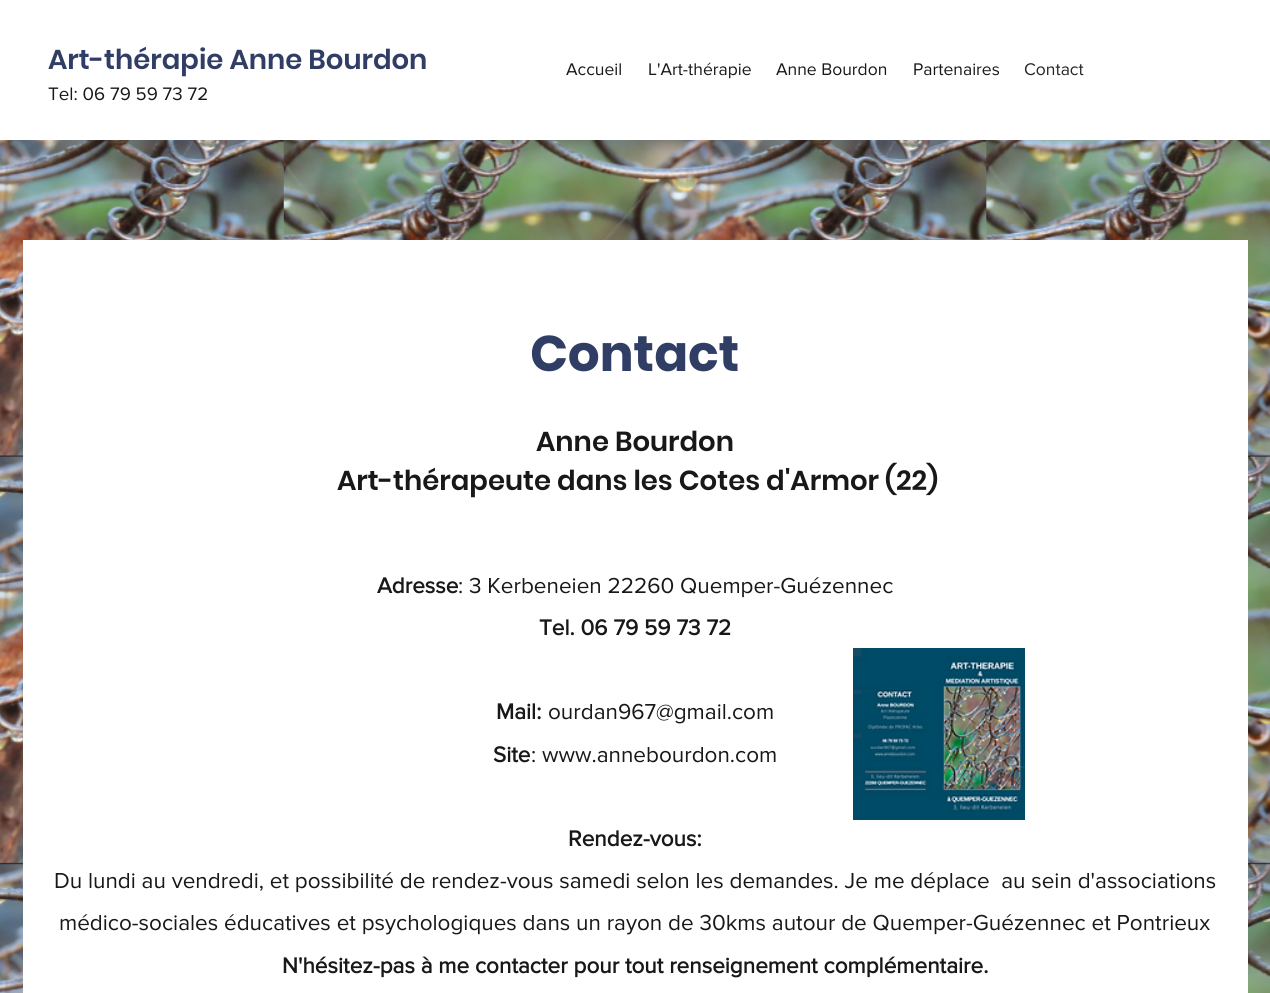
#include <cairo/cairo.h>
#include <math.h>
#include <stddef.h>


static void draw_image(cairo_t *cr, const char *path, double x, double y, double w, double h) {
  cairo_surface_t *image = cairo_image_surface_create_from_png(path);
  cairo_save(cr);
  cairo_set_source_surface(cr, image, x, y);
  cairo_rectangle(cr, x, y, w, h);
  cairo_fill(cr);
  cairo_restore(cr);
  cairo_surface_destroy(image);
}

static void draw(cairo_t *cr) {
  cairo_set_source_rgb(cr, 1, 1, 1);
  cairo_paint(cr);
  cairo_set_source_rgb(cr, 24 / 255.0, 24 / 255.0, 24 / 255.0);
  cairo_rectangle(cr, 0, 454, 1270, 411);
  cairo_fill(cr);
  draw_image(cr, "images/1.png", 0, 140, 1270, 853);
  cairo_set_source_rgb(cr, 1, 1, 1);
  cairo_rectangle(cr, 23, 240, 1225, 753);
  cairo_fill(cr);
  draw_image(cr, "images/2.png", 853, 648, 172, 172);
  cairo_select_font_face(cr, "Poppins SemiBold", CAIRO_FONT_SLANT_NORMAL, CAIRO_FONT_WEIGHT_NORMAL);
  cairo_set_font_size(cr, 27.5);
  cairo_set_source_rgb(cr, 48 / 255.0, 61 / 255.0, 100 / 255.0);
  cairo_move_to(cr, 48, 69);
  cairo_show_text(cr, "Art-thérapie Anne Bourdon");
  cairo_select_font_face(cr, "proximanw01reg", CAIRO_FONT_SLANT_NORMAL, CAIRO_FONT_WEIGHT_NORMAL);
  cairo_set_font_size(cr, 18.75);
  cairo_set_source_rgb(cr, 24 / 255.0, 24 / 255.0, 24 / 255.0);
  cairo_move_to(cr, 48, 100);
  cairo_show_text(cr, "Tel: 06 79 59 73 72");
  cairo_set_font_size(cr, 17.5);
  cairo_move_to(cr, 566, 75);
  cairo_show_text(cr, "Accueil");
  cairo_move_to(cr, 648, 75);
  cairo_show_text(cr, "L'Art-thérapie");
  cairo_move_to(cr, 776, 75);
  cairo_show_text(cr, "Anne Bourdon");
  cairo_move_to(cr, 913, 75);
  cairo_show_text(cr, "Partenaires");
  cairo_set_source_rgb(cr, 37 / 255.0, 37 / 255.0, 37 / 255.0);
  cairo_move_to(cr, 1024, 75);
  cairo_show_text(cr, "Contact");
  cairo_select_font_face(cr, "Poppins", CAIRO_FONT_SLANT_NORMAL, CAIRO_FONT_WEIGHT_BOLD);
  cairo_set_font_size(cr, 50);
  cairo_set_source_rgb(cr, 48 / 255.0, 61 / 255.0, 100 / 255.0);
  cairo_move_to(cr, 530, 371);
  cairo_show_text(cr, "Contact");
  cairo_select_font_face(cr, "Poppins SemiBold", CAIRO_FONT_SLANT_NORMAL, CAIRO_FONT_WEIGHT_NORMAL);
  cairo_set_font_size(cr, 27.5);
  cairo_set_source_rgb(cr, 24 / 255.0, 24 / 255.0, 24 / 255.0);
  cairo_move_to(cr, 536, 451);
  cairo_show_text(cr, "Anne Bourdon");
  cairo_move_to(cr, 337, 490);
  cairo_show_text(cr, "Art-thérapeute dans les Cotes d'Armor (22)");
  cairo_select_font_face(cr, "proximanw01reg", CAIRO_FONT_SLANT_NORMAL, CAIRO_FONT_WEIGHT_BOLD);
  cairo_set_font_size(cr, 22.5);
  cairo_move_to(cr, 377, 593);
  cairo_show_text(cr, "Adresse");
  cairo_select_font_face(cr, "proximanw01reg", CAIRO_FONT_SLANT_NORMAL, CAIRO_FONT_WEIGHT_NORMAL);
  cairo_move_to(cr, 458, 593);
  cairo_show_text(cr, ": 3 Kerbeneien 22260 Quemper-Guézennec");
  cairo_select_font_face(cr, "proximanw01reg", CAIRO_FONT_SLANT_NORMAL, CAIRO_FONT_WEIGHT_BOLD);
  cairo_move_to(cr, 539, 635);
  cairo_show_text(cr, "Tel. 06 79 59 73 72");
  cairo_move_to(cr, 496, 719);
  cairo_show_text(cr, "Mail:");
  cairo_select_font_face(cr, "proximanw01reg", CAIRO_FONT_SLANT_NORMAL, CAIRO_FONT_WEIGHT_NORMAL);
  cairo_move_to(cr, 548, 719);
  cairo_show_text(cr, "ourdan967@gmail.com");
  cairo_select_font_face(cr, "proximanw01reg", CAIRO_FONT_SLANT_NORMAL, CAIRO_FONT_WEIGHT_BOLD);
  cairo_move_to(cr, 493, 762);
  cairo_show_text(cr, "Site");
  cairo_select_font_face(cr, "proximanw01reg", CAIRO_FONT_SLANT_NORMAL, CAIRO_FONT_WEIGHT_NORMAL);
  cairo_move_to(cr, 531, 762);
  cairo_show_text(cr, ": www.annebourdon.com");
  cairo_select_font_face(cr, "proximanw01reg", CAIRO_FONT_SLANT_NORMAL, CAIRO_FONT_WEIGHT_BOLD);
  cairo_move_to(cr, 568, 846);
  cairo_show_text(cr, "Rendez-vous:");
  cairo_select_font_face(cr, "proximanw01reg", CAIRO_FONT_SLANT_NORMAL, CAIRO_FONT_WEIGHT_NORMAL);
  cairo_move_to(cr, 54, 888);
  cairo_show_text(cr, "Du lundi au vendredi, et possibilité de rendez-vous samedi selon les demandes. Je me déplace  au sein d'associations");
  cairo_move_to(cr, 59, 930);
  cairo_show_text(cr, "médico-sociales éducatives et psychologiques dans un rayon de 30kms autour de Quemper-Guézennec et Pontrieux");
  cairo_select_font_face(cr, "proximanw01reg", CAIRO_FONT_SLANT_NORMAL, CAIRO_FONT_WEIGHT_BOLD);
  cairo_move_to(cr, 282, 973);
  cairo_show_text(cr, "N'hésitez-pas à me contacter pour tout renseignement complémentaire.");
}

int main(void) {
  cairo_surface_t *surface = cairo_image_surface_create(CAIRO_FORMAT_RGB24, 1270, 993);
  cairo_t *cr = cairo_create(surface);
  cairo_font_options_t *options = cairo_font_options_create();
  cairo_font_options_set_hint_metrics(options, CAIRO_HINT_METRICS_OFF);
  cairo_font_options_set_hint_style(options, CAIRO_HINT_STYLE_NONE);
  cairo_set_font_options(cr, options);
  cairo_set_miter_limit(cr, 4);
  draw(cr);
  cairo_surface_write_to_png(surface, "out.png");
  cairo_font_options_destroy(options);
  cairo_destroy(cr);
  cairo_surface_destroy(surface);
  return 0;
}
